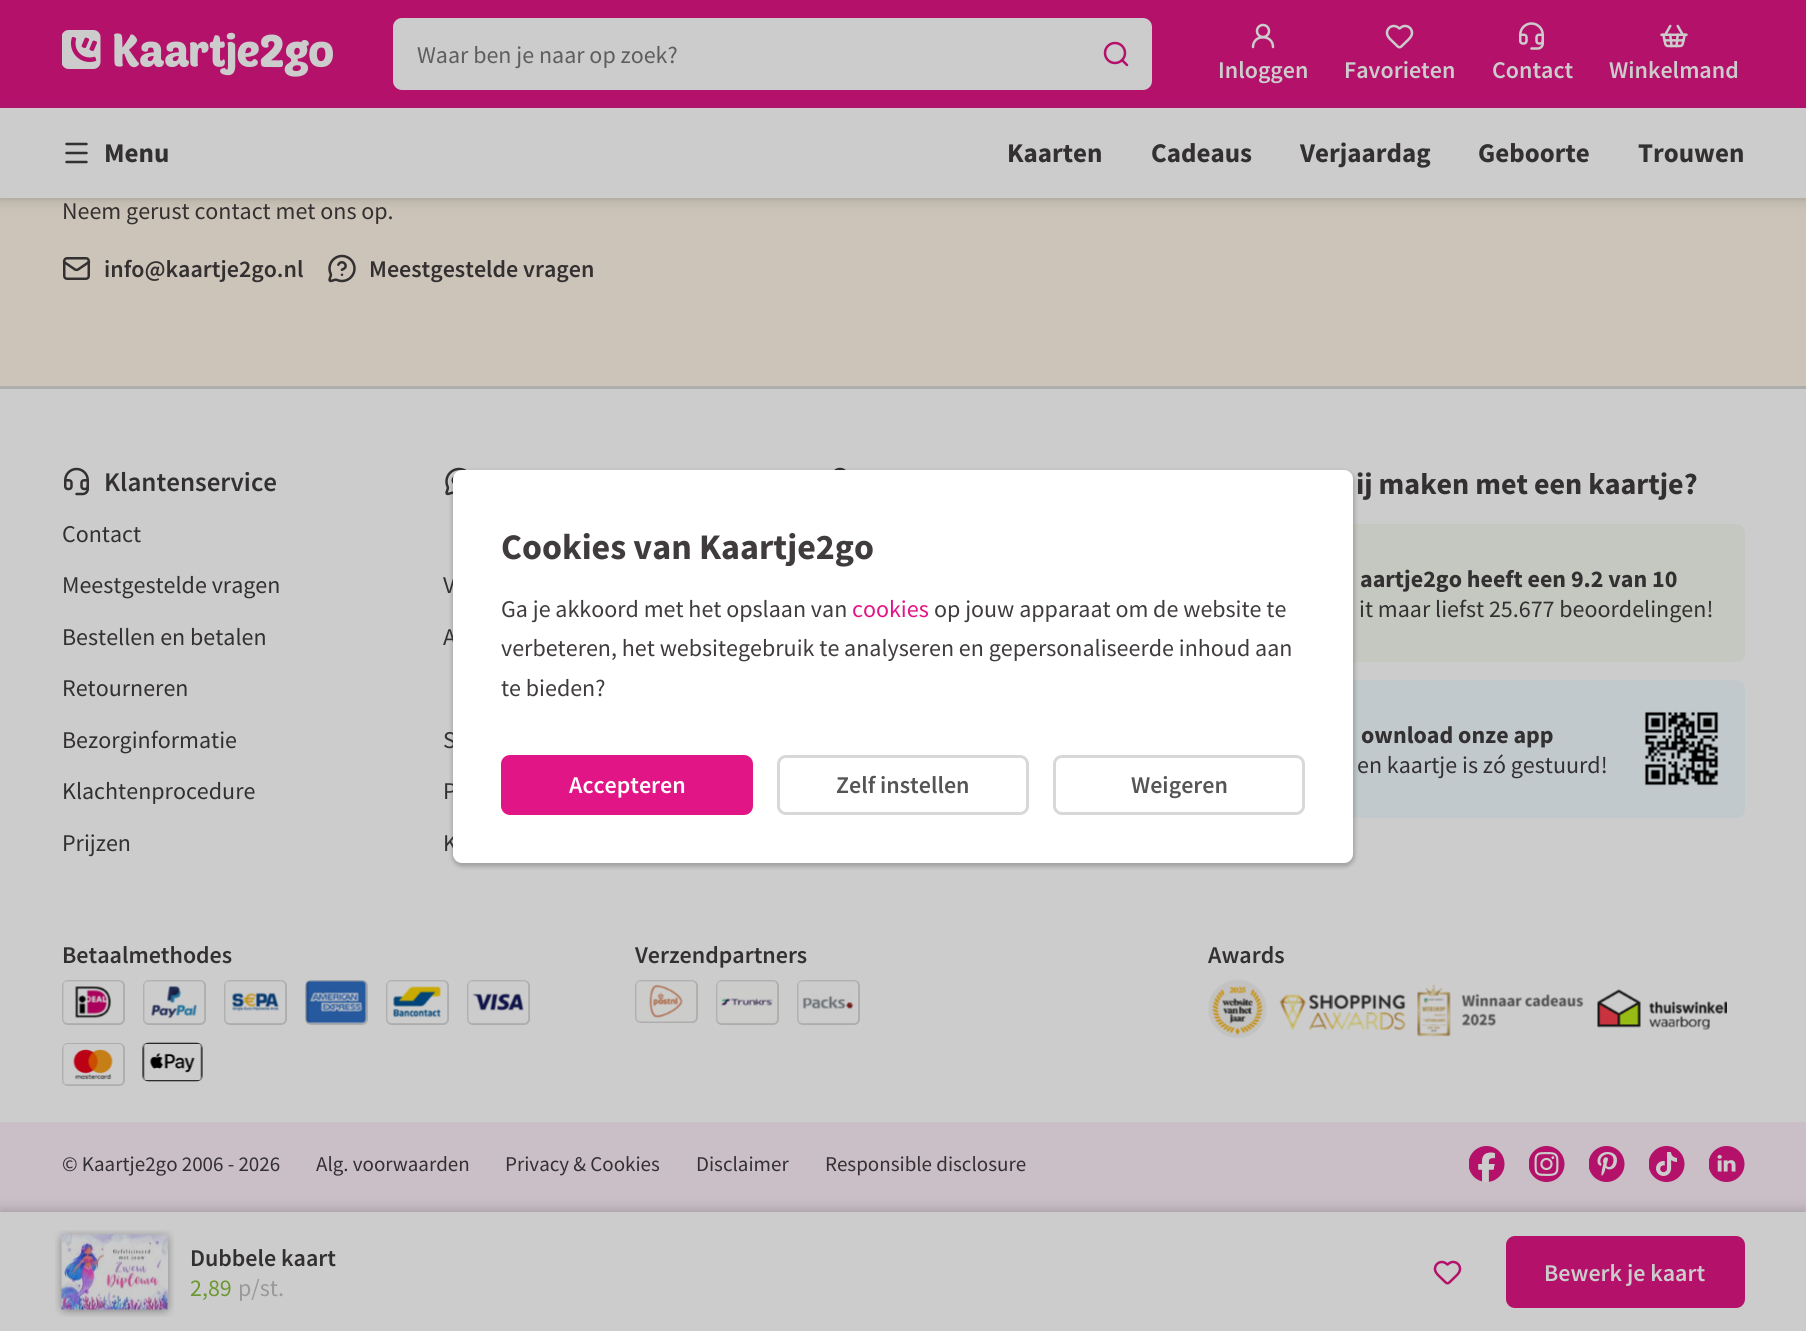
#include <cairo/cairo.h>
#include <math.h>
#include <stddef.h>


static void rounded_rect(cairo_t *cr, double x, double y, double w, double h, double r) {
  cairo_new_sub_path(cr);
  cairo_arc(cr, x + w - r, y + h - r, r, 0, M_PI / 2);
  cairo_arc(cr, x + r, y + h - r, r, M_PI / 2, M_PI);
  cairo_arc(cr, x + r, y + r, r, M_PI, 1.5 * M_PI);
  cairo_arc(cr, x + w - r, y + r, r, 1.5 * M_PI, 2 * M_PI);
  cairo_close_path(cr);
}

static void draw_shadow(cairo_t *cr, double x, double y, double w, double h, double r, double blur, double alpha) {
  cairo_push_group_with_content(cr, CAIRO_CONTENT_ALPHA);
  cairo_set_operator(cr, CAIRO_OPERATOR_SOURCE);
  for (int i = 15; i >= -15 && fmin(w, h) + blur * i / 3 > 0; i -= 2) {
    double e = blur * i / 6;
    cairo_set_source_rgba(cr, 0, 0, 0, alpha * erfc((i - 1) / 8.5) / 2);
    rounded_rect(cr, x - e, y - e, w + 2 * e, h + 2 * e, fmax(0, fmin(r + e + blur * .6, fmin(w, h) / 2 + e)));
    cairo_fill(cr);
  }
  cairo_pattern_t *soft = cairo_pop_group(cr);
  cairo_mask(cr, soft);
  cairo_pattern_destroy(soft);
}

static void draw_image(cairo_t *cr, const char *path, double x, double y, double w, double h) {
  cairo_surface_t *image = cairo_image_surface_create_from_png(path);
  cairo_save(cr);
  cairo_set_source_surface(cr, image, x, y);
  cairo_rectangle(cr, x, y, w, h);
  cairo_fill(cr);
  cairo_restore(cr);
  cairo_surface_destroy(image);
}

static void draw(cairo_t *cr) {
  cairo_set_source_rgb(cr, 204 / 255.0, 204 / 255.0, 204 / 255.0);
  cairo_paint(cr);
  cairo_set_source_rgb(cr, 180 / 255.0, 17 / 255.0, 107 / 255.0);
  cairo_rectangle(cr, 0, 0, 1806, 108);
  cairo_fill(cr);
  draw_image(cr, "images/1.png", 62, 30, 271, 47);
  cairo_set_source_rgb(cr, 204 / 255.0, 204 / 255.0, 204 / 255.0);
  rounded_rect(cr, 393, 18, 759, 72, 9);
  cairo_fill(cr);
  cairo_new_path(cr);
  cairo_move_to(cr, 1127, 65);
  cairo_line_to(cr, 1122, 60);
  cairo_set_source_rgb(cr, 180 / 255.0, 17 / 255.0, 107 / 255.0);
  cairo_set_line_width(cr, 2.5);
  cairo_set_line_cap(cr, CAIRO_LINE_CAP_ROUND);
  cairo_set_line_join(cr, CAIRO_LINE_JOIN_ROUND);
  cairo_stroke(cr);
  cairo_arc(cr, 1115, 53, 10, 0, 2 * M_PI);
  cairo_set_line_cap(cr, CAIRO_LINE_CAP_BUTT);
  cairo_set_line_join(cr, CAIRO_LINE_JOIN_MITER);
  cairo_stroke(cr);
  cairo_arc(cr, 1263, 31, 6, 0, 2 * M_PI);
  cairo_set_source_rgb(cr, 204 / 255.0, 204 / 255.0, 204 / 255.0);
  cairo_stroke(cr);
  cairo_new_path(cr);
  cairo_move_to(cr, 1273, 47);
  cairo_curve_to(cr, 1273, 34, 1253, 34, 1253, 47);
  cairo_set_line_cap(cr, CAIRO_LINE_CAP_ROUND);
  cairo_set_line_join(cr, CAIRO_LINE_JOIN_ROUND);
  cairo_stroke(cr);
  draw_image(cr, "images/2.png", 1385, 24, 29, 25);
  draw_image(cr, "images/3.png", 1519, 22, 25, 28);
  draw_image(cr, "images/4.png", 1660, 24, 28, 24);
  cairo_set_source_rgb(cr, 204 / 255.0, 196 / 255.0, 184 / 255.0);
  cairo_rectangle(cr, 0, 198, 1806, 188);
  cairo_fill(cr);
  cairo_set_source_rgb(cr, 79 / 255.0, 79 / 255.0, 79 / 255.0);
  draw_shadow(cr, -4, 107, 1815, 99, 0, 4.5, 0.1);
  cairo_set_source_rgb(cr, 53 / 255.0, 53 / 255.0, 53 / 255.0);
  draw_shadow(cr, 0, 110, 1806, 90, 0, 1.5, 0.1);
  cairo_set_source_rgb(cr, 204 / 255.0, 204 / 255.0, 204 / 255.0);
  cairo_rectangle(cr, 0, 108, 1806, 90);
  cairo_fill(cr);
  cairo_new_path(cr);
  cairo_move_to(cr, 66.5, 144);
  cairo_line_to(cr, 86.5, 144);
  cairo_move_to(cr, 66.5, 153);
  cairo_line_to(cr, 86.5, 153);
  cairo_move_to(cr, 66.5, 162);
  cairo_line_to(cr, 86.5, 162);
  cairo_set_source_rgb(cr, 51 / 255.0, 48 / 255.0, 50 / 255.0);
  cairo_stroke(cr);
  cairo_new_path(cr);
  cairo_move_to(cr, 89, 262);
  cairo_line_to(cr, 78, 269.5);
  cairo_curve_to(cr, 77, 270, 76, 270, 75, 269.5);
  cairo_line_to(cr, 64, 262);
  cairo_stroke(cr);
  rounded_rect(cr, 64.25, 258.25, 24.5, 20.5, 2.75);
  cairo_set_line_cap(cr, CAIRO_LINE_CAP_BUTT);
  cairo_set_line_join(cr, CAIRO_LINE_JOIN_MITER);
  cairo_stroke(cr);
  draw_image(cr, "images/5.png", 328, 254, 28, 29);
  cairo_set_source_rgb(cr, 173 / 255.0, 173 / 255.0, 173 / 255.0);
  cairo_rectangle(cr, 0, 386, 1806, 3);
  cairo_fill(cr);
  draw_image(cr, "images/6.png", 834, 467, 12, 3);
  draw_image(cr, "images/7.png", 64, 467, 25, 29);
  draw_image(cr, "images/8.png", 445, 467, 22, 29);
  cairo_set_source_rgb(cr, 197 / 255.0, 200 / 255.0, 192 / 255.0);
  rounded_rect(cr, 1208, 524, 537, 138, 9);
  cairo_fill(cr);
  cairo_set_source_rgb(cr, 193 / 255.0, 201 / 255.0, 204 / 255.0);
  rounded_rect(cr, 1208, 680, 537, 138, 9);
  cairo_fill(cr);
  draw_image(cr, "images/9.png", 1644, 711, 75, 75);
  rounded_rect(cr, 63, 981, 61, 43, 5);
  cairo_set_source_rgb(cr, 173 / 255.0, 173 / 255.0, 173 / 255.0);
  cairo_set_line_width(cr, 2);
  cairo_stroke(cr);
  draw_image(cr, "images/10.png", 62, 980, 62, 44);
  rounded_rect(cr, 144, 981, 61, 43, 5);
  cairo_stroke(cr);
  draw_image(cr, "images/11.png", 143, 980, 62, 44);
  rounded_rect(cr, 225, 981, 61, 43, 5);
  cairo_stroke(cr);
  draw_image(cr, "images/12.png", 224, 980, 62, 44);
  rounded_rect(cr, 306, 981, 61, 43, 5);
  cairo_stroke(cr);
  draw_image(cr, "images/13.png", 305, 980, 62, 44);
  rounded_rect(cr, 387, 981, 61, 43, 5);
  cairo_stroke(cr);
  draw_image(cr, "images/14.png", 386, 980, 62, 44);
  rounded_rect(cr, 468, 981, 61, 43, 5);
  cairo_stroke(cr);
  draw_image(cr, "images/15.png", 467, 980, 62, 44);
  rounded_rect(cr, 63, 1044, 61, 41, 5);
  cairo_stroke(cr);
  draw_image(cr, "images/16.png", 62, 1044, 62, 41);
  draw_image(cr, "images/17.png", 142, 1042, 61, 40);
  rounded_rect(cr, 636, 981, 61, 41, 5);
  cairo_stroke(cr);
  draw_image(cr, "images/18.png", 635, 980, 62, 42);
  rounded_rect(cr, 717, 981, 61, 43, 5);
  cairo_stroke(cr);
  draw_image(cr, "images/19.png", 716, 980, 62, 44);
  rounded_rect(cr, 798, 981, 61, 43, 5);
  cairo_stroke(cr);
  draw_image(cr, "images/20.png", 797, 980, 62, 44);
  draw_image(cr, "images/21.png", 1208, 979, 59, 59);
  draw_image(cr, "images/22.png", 1279, 994, 127, 37);
  draw_image(cr, "images/23.png", 1417, 984, 167, 53);
  draw_image(cr, "images/24.png", 1597, 989, 130, 41);
  cairo_set_source_rgb(cr, 202 / 255.0, 191 / 255.0, 198 / 255.0);
  cairo_rectangle(cr, 0, 1122, 1806, 90);
  cairo_fill(cr);
  draw_image(cr, "images/25.png", 1469, 1146, 36, 36);
  draw_image(cr, "images/26.png", 1529, 1146, 36, 36);
  draw_image(cr, "images/27.png", 1589, 1146, 36, 36);
  draw_image(cr, "images/28.png", 1649, 1146, 36, 36);
  draw_image(cr, "images/29.png", 1709, 1146, 36, 36);
  cairo_set_source_rgb(cr, 0, 0, 0);
  draw_shadow(cr, 0, 1212, 1806, 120, 0, 7.5, 0.25);
  cairo_set_source_rgb(cr, 204 / 255.0, 204 / 255.0, 204 / 255.0);
  cairo_rectangle(cr, 0, 1212, 1806, 119);
  cairo_fill(cr);
  draw_image(cr, "images/30.png", 55, 1230, 119, 87);
  draw_image(cr, "images/31.png", 1433, 1260, 29, 25);
  cairo_set_source_rgb(cr, 180 / 255.0, 17 / 255.0, 107 / 255.0);
  rounded_rect(cr, 1506, 1236, 239, 72, 9);
  cairo_fill(cr);
  cairo_set_source_rgb(cr, 0, 0, 0);
  draw_shadow(cr, 452, 471, 903, 396, 11, 2, 0.2);
  cairo_select_font_face(cr, "Source Sans Pro", CAIRO_FONT_SLANT_NORMAL, CAIRO_FONT_WEIGHT_NORMAL);
  cairo_set_font_size(cr, 24);
  cairo_set_source_rgb(cr, 94 / 255.0, 94 / 255.0, 94 / 255.0);
  cairo_move_to(cr, 417, 63);
  cairo_show_text(cr, "Waar ben je naar op zoek?");
  cairo_select_font_face(cr, "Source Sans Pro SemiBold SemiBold", CAIRO_FONT_SLANT_NORMAL, CAIRO_FONT_WEIGHT_NORMAL);
  cairo_set_source_rgb(cr, 204 / 255.0, 204 / 255.0, 204 / 255.0);
  cairo_move_to(cr, 1218, 78);
  cairo_show_text(cr, "Inloggen");
  cairo_move_to(cr, 1344, 78);
  cairo_show_text(cr, "Favorieten");
  cairo_move_to(cr, 1492, 78);
  cairo_show_text(cr, "Contact");
  cairo_move_to(cr, 1609, 78);
  cairo_show_text(cr, "Winkelmand");
  cairo_select_font_face(cr, "Source Sans Pro", CAIRO_FONT_SLANT_NORMAL, CAIRO_FONT_WEIGHT_BOLD);
  cairo_set_font_size(cr, 27);
  cairo_set_source_rgb(cr, 51 / 255.0, 48 / 255.0, 50 / 255.0);
  cairo_move_to(cr, 104, 162);
  cairo_show_text(cr, "Menu");
  cairo_move_to(cr, 1007, 162);
  cairo_show_text(cr, "Kaarten");
  cairo_move_to(cr, 1151, 162);
  cairo_show_text(cr, "Cadeaus");
  cairo_move_to(cr, 1300, 162);
  cairo_show_text(cr, "Verjaardag");
  cairo_move_to(cr, 1478, 162);
  cairo_show_text(cr, "Geboorte");
  cairo_move_to(cr, 1638, 162);
  cairo_show_text(cr, "Trouwen");
  cairo_select_font_face(cr, "Source Sans Pro", CAIRO_FONT_SLANT_NORMAL, CAIRO_FONT_WEIGHT_NORMAL);
  cairo_set_font_size(cr, 24);
  cairo_move_to(cr, 62, 219);
  cairo_show_text(cr, "Neem gerust contact met ons op.");
  cairo_select_font_face(cr, "Source Sans Pro SemiBold SemiBold", CAIRO_FONT_SLANT_NORMAL, CAIRO_FONT_WEIGHT_NORMAL);
  cairo_move_to(cr, 104, 277);
  cairo_show_text(cr, "info@kaartje2go.nl");
  cairo_move_to(cr, 369, 277);
  cairo_show_text(cr, "Meestgestelde vragen");
  cairo_set_font_size(cr, 27);
  cairo_move_to(cr, 104, 491);
  cairo_show_text(cr, "Klantenservice");
  cairo_select_font_face(cr, "Source Sans Pro", CAIRO_FONT_SLANT_NORMAL, CAIRO_FONT_WEIGHT_NORMAL);
  cairo_set_font_size(cr, 24);
  cairo_move_to(cr, 62, 542);
  cairo_show_text(cr, "Contact");
  cairo_move_to(cr, 62, 593);
  cairo_show_text(cr, "Meestgestelde vragen");
  cairo_move_to(cr, 62, 645);
  cairo_show_text(cr, "Bestellen en betalen");
  cairo_move_to(cr, 62, 696);
  cairo_show_text(cr, "Retourneren");
  cairo_move_to(cr, 62, 748);
  cairo_show_text(cr, "Bezorginformatie");
  cairo_move_to(cr, 62, 799);
  cairo_show_text(cr, "Klachtenprocedure");
  cairo_move_to(cr, 62, 851);
  cairo_show_text(cr, "Prijzen");
  cairo_move_to(cr, 443, 593);
  cairo_show_text(cr, "V");
  cairo_move_to(cr, 443, 645);
  cairo_show_text(cr, "A");
  cairo_move_to(cr, 443, 748);
  cairo_show_text(cr, "S");
  cairo_move_to(cr, 443, 799);
  cairo_show_text(cr, "P");
  cairo_move_to(cr, 443, 851);
  cairo_show_text(cr, "K");
  cairo_select_font_face(cr, "Source Sans Pro", CAIRO_FONT_SLANT_NORMAL, CAIRO_FONT_WEIGHT_BOLD);
  cairo_set_font_size(cr, 30);
  cairo_move_to(cr, 1356, 494);
  cairo_show_text(cr, "ij maken met een kaartje?");
  cairo_set_font_size(cr, 24);
  cairo_move_to(cr, 1360, 587);
  cairo_show_text(cr, "aartje2go heeft een 9.2 van 10");
  cairo_select_font_face(cr, "Source Sans Pro", CAIRO_FONT_SLANT_NORMAL, CAIRO_FONT_WEIGHT_NORMAL);
  cairo_move_to(cr, 1359, 617);
  cairo_show_text(cr, "it maar liefst 25.677 beoordelingen!");
  cairo_select_font_face(cr, "Source Sans Pro", CAIRO_FONT_SLANT_NORMAL, CAIRO_FONT_WEIGHT_BOLD);
  cairo_move_to(cr, 1361, 743);
  cairo_show_text(cr, "ownload onze app");
  cairo_select_font_face(cr, "Source Sans Pro", CAIRO_FONT_SLANT_NORMAL, CAIRO_FONT_WEIGHT_NORMAL);
  cairo_move_to(cr, 1357, 773);
  cairo_show_text(cr, "en kaartje is zó gestuurd!");
  cairo_select_font_face(cr, "Source Sans Pro SemiBold SemiBold", CAIRO_FONT_SLANT_NORMAL, CAIRO_FONT_WEIGHT_NORMAL);
  cairo_move_to(cr, 62, 963);
  cairo_show_text(cr, "Betaalmethodes");
  cairo_move_to(cr, 635, 963);
  cairo_show_text(cr, "Verzendpartners");
  cairo_move_to(cr, 1208, 963);
  cairo_show_text(cr, "Awards");
  cairo_select_font_face(cr, "Source Sans Pro", CAIRO_FONT_SLANT_NORMAL, CAIRO_FONT_WEIGHT_NORMAL);
  cairo_set_font_size(cr, 21);
  cairo_move_to(cr, 62, 1171);
  cairo_show_text(cr, "© Kaartje2go 2006 - 2026");
  cairo_move_to(cr, 316, 1171);
  cairo_show_text(cr, "Alg. voorwaarden");
  cairo_move_to(cr, 505, 1171);
  cairo_show_text(cr, "Privacy & Cookies");
  cairo_move_to(cr, 696, 1171);
  cairo_show_text(cr, "Disclaimer");
  cairo_move_to(cr, 825, 1171);
  cairo_show_text(cr, "Responsible disclosure");
  cairo_select_font_face(cr, "Source Sans Pro SemiBold SemiBold", CAIRO_FONT_SLANT_NORMAL, CAIRO_FONT_WEIGHT_NORMAL);
  cairo_set_font_size(cr, 24);
  cairo_move_to(cr, 190, 1266);
  cairo_show_text(cr, "Dubbele kaart");
  cairo_select_font_face(cr, "Source Sans Pro", CAIRO_FONT_SLANT_NORMAL, CAIRO_FONT_WEIGHT_NORMAL);
  cairo_set_source_rgb(cr, 108 / 255.0, 152 / 255.0, 48 / 255.0);
  cairo_move_to(cr, 190, 1296);
  cairo_show_text(cr, "2,89");
  cairo_set_source_rgb(cr, 153 / 255.0, 153 / 255.0, 153 / 255.0);
  cairo_move_to(cr, 238, 1296);
  cairo_show_text(cr, "p/st.");
  cairo_select_font_face(cr, "Source Sans Pro SemiBold SemiBold", CAIRO_FONT_SLANT_NORMAL, CAIRO_FONT_WEIGHT_NORMAL);
  cairo_set_source_rgb(cr, 204 / 255.0, 204 / 255.0, 204 / 255.0);
  cairo_move_to(cr, 1544, 1281);
  cairo_show_text(cr, "Bewerk je kaart");
  cairo_set_source_rgb(cr, 1, 1, 1);
  rounded_rect(cr, 453, 470, 900, 393, 9);
  cairo_fill(cr);
  cairo_select_font_face(cr, "Source Sans Pro", CAIRO_FONT_SLANT_NORMAL, CAIRO_FONT_WEIGHT_BOLD);
  cairo_set_font_size(cr, 36);
  cairo_set_source_rgb(cr, 64 / 255.0, 60 / 255.0, 62 / 255.0);
  cairo_move_to(cr, 501, 559);
  cairo_show_text(cr, "Cookies van Kaartje2go");
  cairo_select_font_face(cr, "Source Sans Pro", CAIRO_FONT_SLANT_NORMAL, CAIRO_FONT_WEIGHT_NORMAL);
  cairo_set_font_size(cr, 24);
  cairo_move_to(cr, 501, 617);
  cairo_show_text(cr, "Ga je akkoord met het opslaan van");
  cairo_set_source_rgb(cr, 225 / 255.0, 21 / 255.0, 134 / 255.0);
  cairo_move_to(cr, 852, 617);
  cairo_show_text(cr, "cookies");
  cairo_set_source_rgb(cr, 64 / 255.0, 60 / 255.0, 62 / 255.0);
  cairo_move_to(cr, 934, 617);
  cairo_show_text(cr, "op jouw apparaat om de website te");
  cairo_move_to(cr, 501, 656);
  cairo_show_text(cr, "verbeteren, het websitegebruik te analyseren en gepersonaliseerde inhoud aan");
  cairo_move_to(cr, 501, 696);
  cairo_show_text(cr, "te bieden?");
  cairo_set_source_rgb(cr, 225 / 255.0, 21 / 255.0, 134 / 255.0);
  rounded_rect(cr, 501, 755, 252, 60, 9);
  cairo_fill(cr);
  cairo_select_font_face(cr, "Source Sans Pro SemiBold SemiBold", CAIRO_FONT_SLANT_NORMAL, CAIRO_FONT_WEIGHT_NORMAL);
  cairo_set_source_rgb(cr, 1, 1, 1);
  cairo_move_to(cr, 569, 793);
  cairo_show_text(cr, "Accepteren");
  rounded_rect(cr, 778.5, 756.5, 249, 57, 7.5);
  cairo_set_source_rgb(cr, 216 / 255.0, 216 / 255.0, 216 / 255.0);
  cairo_set_line_width(cr, 3);
  cairo_stroke(cr);
  cairo_set_source_rgb(cr, 85 / 255.0, 85 / 255.0, 85 / 255.0);
  cairo_move_to(cr, 836, 793);
  cairo_show_text(cr, "Zelf instellen");
  rounded_rect(cr, 1054.5, 756.5, 249, 57, 7.5);
  cairo_set_source_rgb(cr, 216 / 255.0, 216 / 255.0, 216 / 255.0);
  cairo_stroke(cr);
  cairo_set_source_rgb(cr, 85 / 255.0, 85 / 255.0, 85 / 255.0);
  cairo_move_to(cr, 1131, 793);
  cairo_show_text(cr, "Weigeren");
}

int main(void) {
  cairo_surface_t *surface = cairo_image_surface_create(CAIRO_FORMAT_RGB24, 1806, 1331);
  cairo_t *cr = cairo_create(surface);
  cairo_font_options_t *options = cairo_font_options_create();
  cairo_font_options_set_hint_metrics(options, CAIRO_HINT_METRICS_OFF);
  cairo_font_options_set_hint_style(options, CAIRO_HINT_STYLE_NONE);
  cairo_set_font_options(cr, options);
  cairo_set_miter_limit(cr, 4);
  draw(cr);
  cairo_surface_write_to_png(surface, "out.png");
  cairo_font_options_destroy(options);
  cairo_destroy(cr);
  cairo_surface_destroy(surface);
  return 0;
}
